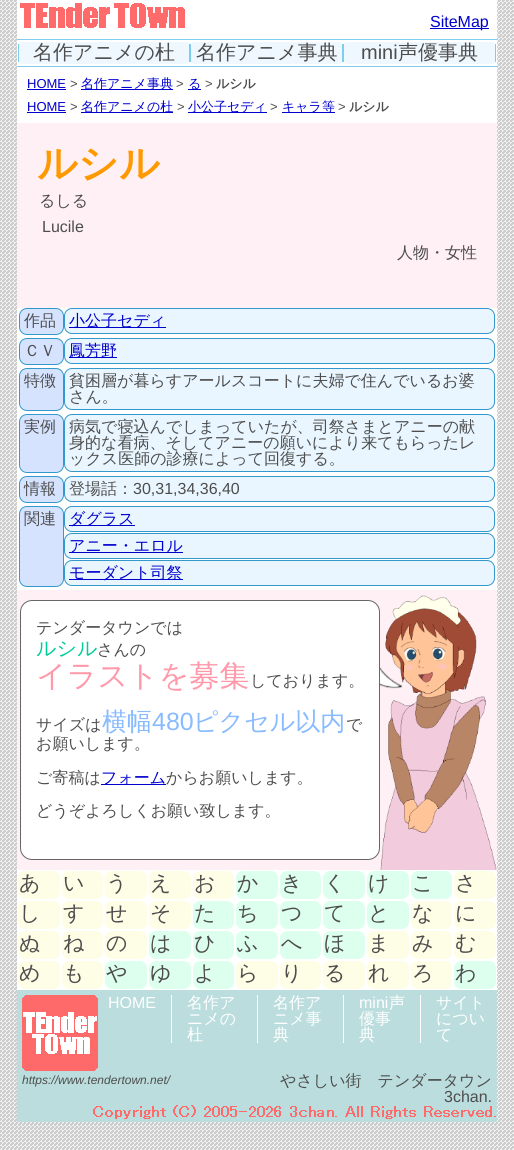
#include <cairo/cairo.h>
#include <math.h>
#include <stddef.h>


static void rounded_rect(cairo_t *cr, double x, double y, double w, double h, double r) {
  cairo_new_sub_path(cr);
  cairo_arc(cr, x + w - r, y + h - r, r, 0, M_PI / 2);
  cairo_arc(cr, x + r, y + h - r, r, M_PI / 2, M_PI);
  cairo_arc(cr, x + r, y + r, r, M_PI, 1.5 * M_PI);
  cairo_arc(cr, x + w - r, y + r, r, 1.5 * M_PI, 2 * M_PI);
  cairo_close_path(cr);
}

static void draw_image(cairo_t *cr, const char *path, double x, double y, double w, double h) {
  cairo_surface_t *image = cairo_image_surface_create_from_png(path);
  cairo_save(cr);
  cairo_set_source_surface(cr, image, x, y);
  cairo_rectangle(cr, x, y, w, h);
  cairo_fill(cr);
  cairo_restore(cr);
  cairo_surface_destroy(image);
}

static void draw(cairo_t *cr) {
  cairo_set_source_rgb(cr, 1, 1, 1);
  cairo_paint(cr);
  draw_image(cr, "images/1.png", 0, 0, 514, 1150);
  cairo_set_source_rgb(cr, 1, 1, 1);
  cairo_rectangle(cr, 17, 0, 480, 990);
  cairo_fill(cr);
  draw_image(cr, "images/2.png", 20, 3, 165, 25);
  cairo_set_source_rgb(cr, 0, 0, 204 / 255.0);
  cairo_rectangle(cr, 430, 28, 59, 1);
  cairo_fill(cr);
  cairo_set_source_rgb(cr, 125 / 255.0, 206 / 255.0, 236 / 255.0);
  cairo_rectangle(cr, 17, 39, 480, 1);
  cairo_fill(cr);
  cairo_set_source_rgb(cr, 240 / 255.0, 248 / 255.0, 1);
  rounded_rect(cr, 18, 42, 172, 22, 4);
  cairo_fill(cr);
  cairo_set_source_rgb(cr, 125 / 255.0, 206 / 255.0, 236 / 255.0);
  cairo_rectangle(cr, 189, 44, 1, 18);
  cairo_fill(cr);
  cairo_rectangle(cr, 18, 44, 1, 18);
  cairo_fill(cr);
  cairo_set_source_rgb(cr, 240 / 255.0, 248 / 255.0, 1);
  rounded_rect(cr, 190, 42, 153, 22, 4);
  cairo_fill(cr);
  cairo_set_source_rgb(cr, 125 / 255.0, 206 / 255.0, 236 / 255.0);
  cairo_rectangle(cr, 342, 44, 1, 18);
  cairo_fill(cr);
  cairo_rectangle(cr, 190, 44, 1, 18);
  cairo_fill(cr);
  cairo_set_source_rgb(cr, 240 / 255.0, 248 / 255.0, 1);
  rounded_rect(cr, 343, 42, 153, 22, 4);
  cairo_fill(cr);
  cairo_set_source_rgb(cr, 125 / 255.0, 206 / 255.0, 236 / 255.0);
  cairo_rectangle(cr, 495, 44, 1, 18);
  cairo_fill(cr);
  cairo_rectangle(cr, 343, 44, 1, 18);
  cairo_fill(cr);
  cairo_rectangle(cr, 17, 66, 480, 1);
  cairo_fill(cr);
  cairo_set_source_rgb(cr, 0, 0, 204 / 255.0);
  cairo_rectangle(cr, 27, 89, 39, 1);
  cairo_fill(cr);
  cairo_rectangle(cr, 81, 89, 92, 1);
  cairo_fill(cr);
  cairo_rectangle(cr, 188, 89, 13, 1);
  cairo_fill(cr);
  cairo_rectangle(cr, 27, 112, 39, 1);
  cairo_fill(cr);
  cairo_rectangle(cr, 81, 112, 92, 1);
  cairo_fill(cr);
  cairo_rectangle(cr, 188, 112, 79, 1);
  cairo_fill(cr);
  cairo_rectangle(cr, 282, 112, 53, 1);
  cairo_fill(cr);
  cairo_set_source_rgb(cr, 1, 240 / 255.0, 245 / 255.0);
  cairo_rectangle(cr, 17, 123, 480, 185);
  cairo_fill(cr);
  cairo_set_source_rgb(cr, 214 / 255.0, 227 / 255.0, 1);
  rounded_rect(cr, 19.5, 308.5, 44, 26, 7.5);
  cairo_fill_preserve(cr);
  cairo_set_source_rgb(cr, 51 / 255.0, 153 / 255.0, 204 / 255.0);
  cairo_set_line_width(cr, 1);
  cairo_stroke(cr);
  cairo_set_source_rgb(cr, 233 / 255.0, 246 / 255.0, 1);
  rounded_rect(cr, 64.5, 308.5, 430, 25, 7.5);
  cairo_fill_preserve(cr);
  cairo_set_source_rgb(cr, 51 / 255.0, 153 / 255.0, 204 / 255.0);
  cairo_stroke(cr);
  cairo_set_source_rgb(cr, 0, 0, 204 / 255.0);
  cairo_rectangle(cr, 69, 327, 97, 1);
  cairo_fill(cr);
  cairo_set_source_rgb(cr, 214 / 255.0, 227 / 255.0, 1);
  rounded_rect(cr, 19.5, 338.5, 44, 26, 7.5);
  cairo_fill_preserve(cr);
  cairo_set_source_rgb(cr, 51 / 255.0, 153 / 255.0, 204 / 255.0);
  cairo_stroke(cr);
  cairo_set_source_rgb(cr, 233 / 255.0, 246 / 255.0, 1);
  rounded_rect(cr, 64.5, 338.5, 430, 25, 7.5);
  cairo_fill_preserve(cr);
  cairo_set_source_rgb(cr, 51 / 255.0, 153 / 255.0, 204 / 255.0);
  cairo_stroke(cr);
  cairo_set_source_rgb(cr, 0, 0, 204 / 255.0);
  cairo_rectangle(cr, 69, 357, 48, 1);
  cairo_fill(cr);
  cairo_set_source_rgb(cr, 214 / 255.0, 227 / 255.0, 1);
  rounded_rect(cr, 19.5, 368.5, 44, 42, 7.5);
  cairo_fill_preserve(cr);
  cairo_set_source_rgb(cr, 51 / 255.0, 153 / 255.0, 204 / 255.0);
  cairo_stroke(cr);
  cairo_set_source_rgb(cr, 233 / 255.0, 246 / 255.0, 1);
  rounded_rect(cr, 64.5, 368.5, 430, 41, 7.5);
  cairo_fill_preserve(cr);
  cairo_set_source_rgb(cr, 51 / 255.0, 153 / 255.0, 204 / 255.0);
  cairo_stroke(cr);
  cairo_set_source_rgb(cr, 214 / 255.0, 227 / 255.0, 1);
  rounded_rect(cr, 19.5, 414.5, 44, 58, 7.5);
  cairo_fill_preserve(cr);
  cairo_set_source_rgb(cr, 51 / 255.0, 153 / 255.0, 204 / 255.0);
  cairo_stroke(cr);
  cairo_set_source_rgb(cr, 233 / 255.0, 246 / 255.0, 1);
  rounded_rect(cr, 64.5, 414.5, 430, 57, 7.5);
  cairo_fill_preserve(cr);
  cairo_set_source_rgb(cr, 51 / 255.0, 153 / 255.0, 204 / 255.0);
  cairo_stroke(cr);
  cairo_set_source_rgb(cr, 214 / 255.0, 227 / 255.0, 1);
  rounded_rect(cr, 19.5, 476.5, 44, 26, 7.5);
  cairo_fill_preserve(cr);
  cairo_set_source_rgb(cr, 51 / 255.0, 153 / 255.0, 204 / 255.0);
  cairo_stroke(cr);
  cairo_set_source_rgb(cr, 233 / 255.0, 246 / 255.0, 1);
  rounded_rect(cr, 64.5, 476.5, 430, 25, 7.5);
  cairo_fill_preserve(cr);
  cairo_set_source_rgb(cr, 51 / 255.0, 153 / 255.0, 204 / 255.0);
  cairo_stroke(cr);
  cairo_set_source_rgb(cr, 214 / 255.0, 227 / 255.0, 1);
  rounded_rect(cr, 19.5, 506.5, 44, 80, 7.5);
  cairo_fill_preserve(cr);
  cairo_set_source_rgb(cr, 51 / 255.0, 153 / 255.0, 204 / 255.0);
  cairo_stroke(cr);
  cairo_set_source_rgb(cr, 233 / 255.0, 246 / 255.0, 1);
  rounded_rect(cr, 64.5, 506.5, 430, 25, 7.5);
  cairo_fill_preserve(cr);
  cairo_set_source_rgb(cr, 51 / 255.0, 153 / 255.0, 204 / 255.0);
  cairo_stroke(cr);
  cairo_set_source_rgb(cr, 0, 0, 204 / 255.0);
  cairo_rectangle(cr, 69, 525, 66, 1);
  cairo_fill(cr);
  cairo_set_source_rgb(cr, 233 / 255.0, 246 / 255.0, 1);
  rounded_rect(cr, 64.5, 533.5, 430, 25, 7.5);
  cairo_fill_preserve(cr);
  cairo_set_source_rgb(cr, 51 / 255.0, 153 / 255.0, 204 / 255.0);
  cairo_stroke(cr);
  cairo_set_source_rgb(cr, 0, 0, 204 / 255.0);
  cairo_rectangle(cr, 69, 552, 114, 1);
  cairo_fill(cr);
  cairo_set_source_rgb(cr, 233 / 255.0, 246 / 255.0, 1);
  rounded_rect(cr, 64.5, 560.5, 430, 25, 7.5);
  cairo_fill_preserve(cr);
  cairo_set_source_rgb(cr, 51 / 255.0, 153 / 255.0, 204 / 255.0);
  cairo_stroke(cr);
  cairo_set_source_rgb(cr, 0, 0, 204 / 255.0);
  cairo_rectangle(cr, 69, 579, 114, 1);
  cairo_fill(cr);
  cairo_set_source_rgb(cr, 1, 240 / 255.0, 245 / 255.0);
  cairo_rectangle(cr, 17, 590, 480, 280);
  cairo_fill(cr);
  draw_image(cr, "images/3.png", 380, 595, 117, 275);
  cairo_set_source_rgb(cr, 1, 1, 1);
  rounded_rect(cr, 20.5, 600.5, 359, 259, 11.5);
  cairo_fill_preserve(cr);
  cairo_set_source_rgb(cr, 102 / 255.0, 102 / 255.0, 102 / 255.0);
  cairo_stroke(cr);
  cairo_set_source_rgb(cr, 0, 0, 204 / 255.0);
  cairo_rectangle(cr, 101, 784, 65, 1);
  cairo_fill(cr);
  cairo_set_source_rgb(cr, 254 / 255.0, 254 / 255.0, 230 / 255.0);
  rounded_rect(cr, 17.5, 870.5, 43, 29, 7.5);
  cairo_fill_preserve(cr);
  cairo_set_source_rgb(cr, 1, 1, 1);
  cairo_stroke(cr);
  cairo_set_source_rgb(cr, 254 / 255.0, 254 / 255.0, 230 / 255.0);
  rounded_rect(cr, 61.5, 870.5, 42, 29, 7.5);
  cairo_fill_preserve(cr);
  cairo_set_source_rgb(cr, 1, 1, 1);
  cairo_stroke(cr);
  cairo_set_source_rgb(cr, 254 / 255.0, 254 / 255.0, 230 / 255.0);
  rounded_rect(cr, 104.5, 870.5, 43, 29, 7.5);
  cairo_fill_preserve(cr);
  cairo_set_source_rgb(cr, 1, 1, 1);
  cairo_stroke(cr);
  cairo_set_source_rgb(cr, 254 / 255.0, 254 / 255.0, 230 / 255.0);
  rounded_rect(cr, 148.5, 870.5, 43, 29, 7.5);
  cairo_fill_preserve(cr);
  cairo_set_source_rgb(cr, 1, 1, 1);
  cairo_stroke(cr);
  cairo_set_source_rgb(cr, 254 / 255.0, 254 / 255.0, 230 / 255.0);
  rounded_rect(cr, 192.5, 870.5, 42, 29, 7.5);
  cairo_fill_preserve(cr);
  cairo_set_source_rgb(cr, 1, 1, 1);
  cairo_stroke(cr);
  cairo_set_source_rgb(cr, 221 / 255.0, 1, 238 / 255.0);
  rounded_rect(cr, 235.5, 870.5, 43, 29, 7.5);
  cairo_fill_preserve(cr);
  cairo_set_source_rgb(cr, 1, 1, 1);
  cairo_stroke(cr);
  cairo_set_source_rgb(cr, 221 / 255.0, 1, 238 / 255.0);
  rounded_rect(cr, 279.5, 870.5, 42, 29, 7.5);
  cairo_fill_preserve(cr);
  cairo_set_source_rgb(cr, 1, 1, 1);
  cairo_stroke(cr);
  cairo_set_source_rgb(cr, 221 / 255.0, 1, 238 / 255.0);
  rounded_rect(cr, 322.5, 870.5, 43, 29, 7.5);
  cairo_fill_preserve(cr);
  cairo_set_source_rgb(cr, 1, 1, 1);
  cairo_stroke(cr);
  cairo_set_source_rgb(cr, 221 / 255.0, 1, 238 / 255.0);
  rounded_rect(cr, 366.5, 870.5, 43, 29, 7.5);
  cairo_fill_preserve(cr);
  cairo_set_source_rgb(cr, 1, 1, 1);
  cairo_stroke(cr);
  cairo_set_source_rgb(cr, 221 / 255.0, 1, 238 / 255.0);
  rounded_rect(cr, 410.5, 870.5, 42, 29, 7.5);
  cairo_fill_preserve(cr);
  cairo_set_source_rgb(cr, 1, 1, 1);
  cairo_stroke(cr);
  cairo_set_source_rgb(cr, 254 / 255.0, 254 / 255.0, 230 / 255.0);
  rounded_rect(cr, 453.5, 870.5, 43, 29, 7.5);
  cairo_fill_preserve(cr);
  cairo_set_source_rgb(cr, 1, 1, 1);
  cairo_stroke(cr);
  cairo_set_source_rgb(cr, 254 / 255.0, 254 / 255.0, 230 / 255.0);
  rounded_rect(cr, 17.5, 900.5, 43, 29, 7.5);
  cairo_fill_preserve(cr);
  cairo_set_source_rgb(cr, 1, 1, 1);
  cairo_stroke(cr);
  cairo_set_source_rgb(cr, 254 / 255.0, 254 / 255.0, 230 / 255.0);
  rounded_rect(cr, 61.5, 900.5, 42, 29, 7.5);
  cairo_fill_preserve(cr);
  cairo_set_source_rgb(cr, 1, 1, 1);
  cairo_stroke(cr);
  cairo_set_source_rgb(cr, 254 / 255.0, 254 / 255.0, 230 / 255.0);
  rounded_rect(cr, 104.5, 900.5, 43, 29, 7.5);
  cairo_fill_preserve(cr);
  cairo_set_source_rgb(cr, 1, 1, 1);
  cairo_stroke(cr);
  cairo_set_source_rgb(cr, 254 / 255.0, 254 / 255.0, 230 / 255.0);
  rounded_rect(cr, 148.5, 900.5, 43, 29, 7.5);
  cairo_fill_preserve(cr);
  cairo_set_source_rgb(cr, 1, 1, 1);
  cairo_stroke(cr);
  cairo_set_source_rgb(cr, 221 / 255.0, 1, 238 / 255.0);
  rounded_rect(cr, 192.5, 900.5, 42, 29, 7.5);
  cairo_fill_preserve(cr);
  cairo_set_source_rgb(cr, 1, 1, 1);
  cairo_stroke(cr);
  cairo_set_source_rgb(cr, 221 / 255.0, 1, 238 / 255.0);
  rounded_rect(cr, 235.5, 900.5, 43, 29, 7.5);
  cairo_fill_preserve(cr);
  cairo_set_source_rgb(cr, 1, 1, 1);
  cairo_stroke(cr);
  cairo_set_source_rgb(cr, 221 / 255.0, 1, 238 / 255.0);
  rounded_rect(cr, 279.5, 900.5, 42, 29, 7.5);
  cairo_fill_preserve(cr);
  cairo_set_source_rgb(cr, 1, 1, 1);
  cairo_stroke(cr);
  cairo_set_source_rgb(cr, 221 / 255.0, 1, 238 / 255.0);
  rounded_rect(cr, 322.5, 900.5, 43, 29, 7.5);
  cairo_fill_preserve(cr);
  cairo_set_source_rgb(cr, 1, 1, 1);
  cairo_stroke(cr);
  cairo_set_source_rgb(cr, 221 / 255.0, 1, 238 / 255.0);
  rounded_rect(cr, 366.5, 900.5, 43, 29, 7.5);
  cairo_fill_preserve(cr);
  cairo_set_source_rgb(cr, 1, 1, 1);
  cairo_stroke(cr);
  cairo_set_source_rgb(cr, 254 / 255.0, 254 / 255.0, 230 / 255.0);
  rounded_rect(cr, 410.5, 900.5, 42, 29, 7.5);
  cairo_fill_preserve(cr);
  cairo_set_source_rgb(cr, 1, 1, 1);
  cairo_stroke(cr);
  cairo_set_source_rgb(cr, 254 / 255.0, 254 / 255.0, 230 / 255.0);
  rounded_rect(cr, 453.5, 900.5, 43, 29, 7.5);
  cairo_fill_preserve(cr);
  cairo_set_source_rgb(cr, 1, 1, 1);
  cairo_stroke(cr);
  cairo_set_source_rgb(cr, 254 / 255.0, 254 / 255.0, 230 / 255.0);
  rounded_rect(cr, 17.5, 930.5, 43, 29, 7.5);
  cairo_fill_preserve(cr);
  cairo_set_source_rgb(cr, 1, 1, 1);
  cairo_stroke(cr);
  cairo_set_source_rgb(cr, 254 / 255.0, 254 / 255.0, 230 / 255.0);
  rounded_rect(cr, 61.5, 930.5, 42, 29, 7.5);
  cairo_fill_preserve(cr);
  cairo_set_source_rgb(cr, 1, 1, 1);
  cairo_stroke(cr);
  cairo_set_source_rgb(cr, 254 / 255.0, 254 / 255.0, 230 / 255.0);
  rounded_rect(cr, 104.5, 930.5, 43, 29, 7.5);
  cairo_fill_preserve(cr);
  cairo_set_source_rgb(cr, 1, 1, 1);
  cairo_stroke(cr);
  cairo_set_source_rgb(cr, 221 / 255.0, 1, 238 / 255.0);
  rounded_rect(cr, 148.5, 930.5, 43, 29, 7.5);
  cairo_fill_preserve(cr);
  cairo_set_source_rgb(cr, 1, 1, 1);
  cairo_stroke(cr);
  cairo_set_source_rgb(cr, 221 / 255.0, 1, 238 / 255.0);
  rounded_rect(cr, 192.5, 930.5, 42, 29, 7.5);
  cairo_fill_preserve(cr);
  cairo_set_source_rgb(cr, 1, 1, 1);
  cairo_stroke(cr);
  cairo_set_source_rgb(cr, 221 / 255.0, 1, 238 / 255.0);
  rounded_rect(cr, 235.5, 930.5, 43, 29, 7.5);
  cairo_fill_preserve(cr);
  cairo_set_source_rgb(cr, 1, 1, 1);
  cairo_stroke(cr);
  cairo_set_source_rgb(cr, 221 / 255.0, 1, 238 / 255.0);
  rounded_rect(cr, 279.5, 930.5, 42, 29, 7.5);
  cairo_fill_preserve(cr);
  cairo_set_source_rgb(cr, 1, 1, 1);
  cairo_stroke(cr);
  cairo_set_source_rgb(cr, 221 / 255.0, 1, 238 / 255.0);
  rounded_rect(cr, 322.5, 930.5, 43, 29, 7.5);
  cairo_fill_preserve(cr);
  cairo_set_source_rgb(cr, 1, 1, 1);
  cairo_stroke(cr);
  cairo_set_source_rgb(cr, 254 / 255.0, 254 / 255.0, 230 / 255.0);
  rounded_rect(cr, 366.5, 930.5, 43, 29, 7.5);
  cairo_fill_preserve(cr);
  cairo_set_source_rgb(cr, 1, 1, 1);
  cairo_stroke(cr);
  cairo_set_source_rgb(cr, 254 / 255.0, 254 / 255.0, 230 / 255.0);
  rounded_rect(cr, 410.5, 930.5, 42, 29, 7.5);
  cairo_fill_preserve(cr);
  cairo_set_source_rgb(cr, 1, 1, 1);
  cairo_stroke(cr);
  cairo_set_source_rgb(cr, 254 / 255.0, 254 / 255.0, 230 / 255.0);
  rounded_rect(cr, 453.5, 930.5, 43, 29, 7.5);
  cairo_fill_preserve(cr);
  cairo_set_source_rgb(cr, 1, 1, 1);
  cairo_stroke(cr);
  cairo_set_source_rgb(cr, 254 / 255.0, 254 / 255.0, 230 / 255.0);
  rounded_rect(cr, 17.5, 960.5, 43, 29, 7.5);
  cairo_fill_preserve(cr);
  cairo_set_source_rgb(cr, 1, 1, 1);
  cairo_stroke(cr);
  cairo_set_source_rgb(cr, 254 / 255.0, 254 / 255.0, 230 / 255.0);
  rounded_rect(cr, 61.5, 960.5, 42, 29, 7.5);
  cairo_fill_preserve(cr);
  cairo_set_source_rgb(cr, 1, 1, 1);
  cairo_stroke(cr);
  cairo_set_source_rgb(cr, 221 / 255.0, 1, 238 / 255.0);
  rounded_rect(cr, 104.5, 960.5, 43, 29, 7.5);
  cairo_fill_preserve(cr);
  cairo_set_source_rgb(cr, 1, 1, 1);
  cairo_stroke(cr);
  cairo_set_source_rgb(cr, 221 / 255.0, 1, 238 / 255.0);
  rounded_rect(cr, 148.5, 960.5, 43, 29, 7.5);
  cairo_fill_preserve(cr);
  cairo_set_source_rgb(cr, 1, 1, 1);
  cairo_stroke(cr);
  cairo_set_source_rgb(cr, 221 / 255.0, 1, 238 / 255.0);
  rounded_rect(cr, 192.5, 960.5, 42, 29, 7.5);
  cairo_fill_preserve(cr);
  cairo_set_source_rgb(cr, 1, 1, 1);
  cairo_stroke(cr);
  cairo_set_source_rgb(cr, 254 / 255.0, 254 / 255.0, 230 / 255.0);
  rounded_rect(cr, 235.5, 960.5, 43, 29, 7.5);
  cairo_fill_preserve(cr);
  cairo_set_source_rgb(cr, 1, 1, 1);
  cairo_stroke(cr);
  cairo_set_source_rgb(cr, 254 / 255.0, 254 / 255.0, 230 / 255.0);
  rounded_rect(cr, 279.5, 960.5, 42, 29, 7.5);
  cairo_fill_preserve(cr);
  cairo_set_source_rgb(cr, 1, 1, 1);
  cairo_stroke(cr);
  cairo_set_source_rgb(cr, 254 / 255.0, 254 / 255.0, 230 / 255.0);
  rounded_rect(cr, 322.5, 960.5, 43, 29, 7.5);
  cairo_fill_preserve(cr);
  cairo_set_source_rgb(cr, 1, 1, 1);
  cairo_stroke(cr);
  cairo_set_source_rgb(cr, 254 / 255.0, 254 / 255.0, 230 / 255.0);
  rounded_rect(cr, 366.5, 960.5, 43, 29, 7.5);
  cairo_fill_preserve(cr);
  cairo_set_source_rgb(cr, 1, 1, 1);
  cairo_stroke(cr);
  cairo_set_source_rgb(cr, 254 / 255.0, 254 / 255.0, 230 / 255.0);
  rounded_rect(cr, 410.5, 960.5, 42, 29, 7.5);
  cairo_fill_preserve(cr);
  cairo_set_source_rgb(cr, 1, 1, 1);
  cairo_stroke(cr);
  cairo_set_source_rgb(cr, 221 / 255.0, 1, 238 / 255.0);
  rounded_rect(cr, 453.5, 960.5, 43, 29, 7.5);
  cairo_fill_preserve(cr);
  cairo_set_source_rgb(cr, 1, 1, 1);
  cairo_stroke(cr);
  cairo_set_source_rgb(cr, 187 / 255.0, 221 / 255.0, 221 / 255.0);
  cairo_rectangle(cr, 17, 990, 480, 132);
  cairo_fill(cr);
  draw_image(cr, "images/4.png", 22, 995, 76, 76);
  cairo_set_source_rgb(cr, 1, 1, 1);
  cairo_rectangle(cr, 171, 995, 1, 48);
  cairo_fill(cr);
  cairo_rectangle(cr, 257, 995, 1, 48);
  cairo_fill(cr);
  cairo_rectangle(cr, 343, 995, 1, 48);
  cairo_fill(cr);
  cairo_rectangle(cr, 420, 995, 1, 48);
  cairo_fill(cr);
  draw_image(cr, "images/5.png", 93, 1105, 403, 14);
  cairo_select_font_face(cr, "Liberation Sans", CAIRO_FONT_SLANT_NORMAL, CAIRO_FONT_WEIGHT_NORMAL);
  cairo_set_font_size(cr, 16);
  cairo_set_source_rgb(cr, 0, 0, 204 / 255.0);
  cairo_move_to(cr, 430, 27);
  cairo_show_text(cr, "SiteMap");
  cairo_select_font_face(cr, "WenQuanYi Zen Hei Medium", CAIRO_FONT_SLANT_NORMAL, CAIRO_FONT_WEIGHT_NORMAL);
  cairo_set_font_size(cr, 20);
  cairo_set_source_rgb(cr, 77 / 255.0, 77 / 255.0, 77 / 255.0);
  cairo_move_to(cr, 33, 59);
  cairo_show_text(cr, "名作アニメの杜");
  cairo_move_to(cr, 196, 59);
  cairo_show_text(cr, "名作アニメ事典");
  cairo_select_font_face(cr, "Liberation Sans", CAIRO_FONT_SLANT_NORMAL, CAIRO_FONT_WEIGHT_NORMAL);
  cairo_move_to(cr, 361, 59);
  cairo_show_text(cr, "mini");
  cairo_select_font_face(cr, "WenQuanYi Zen Hei Medium", CAIRO_FONT_SLANT_NORMAL, CAIRO_FONT_WEIGHT_NORMAL);
  cairo_move_to(cr, 398, 59);
  cairo_show_text(cr, "声優事典");
  cairo_select_font_face(cr, "Liberation Sans", CAIRO_FONT_SLANT_NORMAL, CAIRO_FONT_WEIGHT_NORMAL);
  cairo_set_font_size(cr, 13);
  cairo_set_source_rgb(cr, 0, 0, 204 / 255.0);
  cairo_move_to(cr, 27, 88);
  cairo_show_text(cr, "HOME");
  cairo_set_source_rgb(cr, 77 / 255.0, 77 / 255.0, 77 / 255.0);
  cairo_move_to(cr, 70, 88);
  cairo_show_text(cr, ">");
  cairo_select_font_face(cr, "WenQuanYi Zen Hei Medium", CAIRO_FONT_SLANT_NORMAL, CAIRO_FONT_WEIGHT_NORMAL);
  cairo_set_source_rgb(cr, 0, 0, 204 / 255.0);
  cairo_move_to(cr, 81, 88);
  cairo_show_text(cr, "名作アニメ事典");
  cairo_select_font_face(cr, "Liberation Sans", CAIRO_FONT_SLANT_NORMAL, CAIRO_FONT_WEIGHT_NORMAL);
  cairo_set_source_rgb(cr, 77 / 255.0, 77 / 255.0, 77 / 255.0);
  cairo_move_to(cr, 176, 88);
  cairo_show_text(cr, ">");
  cairo_select_font_face(cr, "WenQuanYi Zen Hei Medium", CAIRO_FONT_SLANT_NORMAL, CAIRO_FONT_WEIGHT_NORMAL);
  cairo_set_source_rgb(cr, 0, 0, 204 / 255.0);
  cairo_move_to(cr, 188, 88);
  cairo_show_text(cr, "る");
  cairo_select_font_face(cr, "Liberation Sans", CAIRO_FONT_SLANT_NORMAL, CAIRO_FONT_WEIGHT_NORMAL);
  cairo_set_source_rgb(cr, 77 / 255.0, 77 / 255.0, 77 / 255.0);
  cairo_move_to(cr, 205, 88);
  cairo_show_text(cr, ">");
  cairo_select_font_face(cr, "WenQuanYi Zen Hei", CAIRO_FONT_SLANT_NORMAL, CAIRO_FONT_WEIGHT_BOLD);
  cairo_move_to(cr, 216, 88);
  cairo_show_text(cr, "ルシル");
  cairo_select_font_face(cr, "Liberation Sans", CAIRO_FONT_SLANT_NORMAL, CAIRO_FONT_WEIGHT_NORMAL);
  cairo_set_source_rgb(cr, 0, 0, 204 / 255.0);
  cairo_move_to(cr, 27, 111);
  cairo_show_text(cr, "HOME");
  cairo_set_source_rgb(cr, 77 / 255.0, 77 / 255.0, 77 / 255.0);
  cairo_move_to(cr, 70, 111);
  cairo_show_text(cr, ">");
  cairo_select_font_face(cr, "WenQuanYi Zen Hei Medium", CAIRO_FONT_SLANT_NORMAL, CAIRO_FONT_WEIGHT_NORMAL);
  cairo_set_source_rgb(cr, 0, 0, 204 / 255.0);
  cairo_move_to(cr, 81, 111);
  cairo_show_text(cr, "名作アニメの杜");
  cairo_select_font_face(cr, "Liberation Sans", CAIRO_FONT_SLANT_NORMAL, CAIRO_FONT_WEIGHT_NORMAL);
  cairo_set_source_rgb(cr, 77 / 255.0, 77 / 255.0, 77 / 255.0);
  cairo_move_to(cr, 177, 111);
  cairo_show_text(cr, ">");
  cairo_select_font_face(cr, "WenQuanYi Zen Hei Medium", CAIRO_FONT_SLANT_NORMAL, CAIRO_FONT_WEIGHT_NORMAL);
  cairo_set_source_rgb(cr, 0, 0, 204 / 255.0);
  cairo_move_to(cr, 188, 111);
  cairo_show_text(cr, "小公子セディ");
  cairo_select_font_face(cr, "Liberation Sans", CAIRO_FONT_SLANT_NORMAL, CAIRO_FONT_WEIGHT_NORMAL);
  cairo_set_source_rgb(cr, 77 / 255.0, 77 / 255.0, 77 / 255.0);
  cairo_move_to(cr, 270, 111);
  cairo_show_text(cr, ">");
  cairo_select_font_face(cr, "WenQuanYi Zen Hei Medium", CAIRO_FONT_SLANT_NORMAL, CAIRO_FONT_WEIGHT_NORMAL);
  cairo_set_source_rgb(cr, 0, 0, 204 / 255.0);
  cairo_move_to(cr, 282, 111);
  cairo_show_text(cr, "キャラ等");
  cairo_select_font_face(cr, "Liberation Sans", CAIRO_FONT_SLANT_NORMAL, CAIRO_FONT_WEIGHT_NORMAL);
  cairo_set_source_rgb(cr, 77 / 255.0, 77 / 255.0, 77 / 255.0);
  cairo_move_to(cr, 338, 111);
  cairo_show_text(cr, ">");
  cairo_select_font_face(cr, "WenQuanYi Zen Hei", CAIRO_FONT_SLANT_NORMAL, CAIRO_FONT_WEIGHT_BOLD);
  cairo_move_to(cr, 349, 111);
  cairo_show_text(cr, "ルシル");
  cairo_set_font_size(cr, 40);
  cairo_set_source_rgb(cr, 1, 153 / 255.0, 0);
  cairo_move_to(cr, 37, 177);
  cairo_show_text(cr, "ルシル");
  cairo_select_font_face(cr, "WenQuanYi Zen Hei Medium", CAIRO_FONT_SLANT_NORMAL, CAIRO_FONT_WEIGHT_NORMAL);
  cairo_set_font_size(cr, 16);
  cairo_set_source_rgb(cr, 77 / 255.0, 77 / 255.0, 77 / 255.0);
  cairo_move_to(cr, 39, 206);
  cairo_show_text(cr, "るしる");
  cairo_select_font_face(cr, "Liberation Sans", CAIRO_FONT_SLANT_NORMAL, CAIRO_FONT_WEIGHT_NORMAL);
  cairo_move_to(cr, 42, 232);
  cairo_show_text(cr, "Lucile");
  cairo_select_font_face(cr, "WenQuanYi Zen Hei Medium", CAIRO_FONT_SLANT_NORMAL, CAIRO_FONT_WEIGHT_NORMAL);
  cairo_move_to(cr, 397, 258);
  cairo_show_text(cr, "人物・女性");
  cairo_move_to(cr, 24, 326);
  cairo_show_text(cr, "作品");
  cairo_set_source_rgb(cr, 0, 0, 204 / 255.0);
  cairo_move_to(cr, 69, 326);
  cairo_show_text(cr, "小公子セディ");
  cairo_set_source_rgb(cr, 77 / 255.0, 77 / 255.0, 77 / 255.0);
  cairo_move_to(cr, 24, 356);
  cairo_show_text(cr, "ＣＶ");
  cairo_set_source_rgb(cr, 0, 0, 204 / 255.0);
  cairo_move_to(cr, 69, 356);
  cairo_show_text(cr, "鳳芳野");
  cairo_set_source_rgb(cr, 77 / 255.0, 77 / 255.0, 77 / 255.0);
  cairo_move_to(cr, 24, 386);
  cairo_show_text(cr, "特徴");
  cairo_move_to(cr, 69, 386);
  cairo_show_text(cr, "貧困層が暮らすアールスコートに夫婦で住んでいるお婆");
  cairo_move_to(cr, 69, 402);
  cairo_show_text(cr, "さん。");
  cairo_move_to(cr, 24, 432);
  cairo_show_text(cr, "実例");
  cairo_move_to(cr, 69, 432);
  cairo_show_text(cr, "病気で寝込んでしまっていたが、司祭さまとアニーの献");
  cairo_move_to(cr, 69, 448);
  cairo_show_text(cr, "身的な看病、そしてアニーの願いにより来てもらったレ");
  cairo_move_to(cr, 69, 464);
  cairo_show_text(cr, "ックス医師の診療によって回復する。");
  cairo_move_to(cr, 24, 494);
  cairo_show_text(cr, "情報");
  cairo_move_to(cr, 69, 494);
  cairo_show_text(cr, "登場話：");
  cairo_select_font_face(cr, "Liberation Sans", CAIRO_FONT_SLANT_NORMAL, CAIRO_FONT_WEIGHT_NORMAL);
  cairo_move_to(cr, 133, 494);
  cairo_show_text(cr, "30,31,34,36,40");
  cairo_select_font_face(cr, "WenQuanYi Zen Hei Medium", CAIRO_FONT_SLANT_NORMAL, CAIRO_FONT_WEIGHT_NORMAL);
  cairo_move_to(cr, 24, 524);
  cairo_show_text(cr, "関連");
  cairo_set_source_rgb(cr, 0, 0, 204 / 255.0);
  cairo_move_to(cr, 69, 524);
  cairo_show_text(cr, "ダグラス");
  cairo_move_to(cr, 69, 551);
  cairo_show_text(cr, "アニー・エロル");
  cairo_move_to(cr, 69, 578);
  cairo_show_text(cr, "モーダント司祭");
  cairo_set_source_rgb(cr, 77 / 255.0, 77 / 255.0, 77 / 255.0);
  cairo_move_to(cr, 36, 633);
  cairo_show_text(cr, "テンダータウンでは");
  cairo_set_font_size(cr, 20);
  cairo_set_source_rgb(cr, 0, 204 / 255.0, 153 / 255.0);
  cairo_move_to(cr, 36, 655);
  cairo_show_text(cr, "ルシル");
  cairo_set_font_size(cr, 16);
  cairo_set_source_rgb(cr, 77 / 255.0, 77 / 255.0, 77 / 255.0);
  cairo_move_to(cr, 97, 655);
  cairo_show_text(cr, "さんの");
  cairo_set_font_size(cr, 30);
  cairo_set_source_rgb(cr, 1, 153 / 255.0, 170 / 255.0);
  cairo_move_to(cr, 36, 686);
  cairo_show_text(cr, "イラストを募集");
  cairo_set_font_size(cr, 16);
  cairo_set_source_rgb(cr, 77 / 255.0, 77 / 255.0, 77 / 255.0);
  cairo_move_to(cr, 250, 686);
  cairo_show_text(cr, "しております。");
  cairo_move_to(cr, 36, 730);
  cairo_show_text(cr, "サイズは");
  cairo_set_font_size(cr, 25);
  cairo_set_source_rgb(cr, 136 / 255.0, 187 / 255.0, 1);
  cairo_move_to(cr, 102, 730);
  cairo_show_text(cr, "横幅");
  cairo_select_font_face(cr, "Liberation Sans", CAIRO_FONT_SLANT_NORMAL, CAIRO_FONT_WEIGHT_NORMAL);
  cairo_move_to(cr, 152, 730);
  cairo_show_text(cr, "480");
  cairo_select_font_face(cr, "WenQuanYi Zen Hei Medium", CAIRO_FONT_SLANT_NORMAL, CAIRO_FONT_WEIGHT_NORMAL);
  cairo_move_to(cr, 193, 730);
  cairo_show_text(cr, "ピクセル以内");
  cairo_set_font_size(cr, 16);
  cairo_set_source_rgb(cr, 77 / 255.0, 77 / 255.0, 77 / 255.0);
  cairo_move_to(cr, 346, 730);
  cairo_show_text(cr, "で");
  cairo_move_to(cr, 36, 749);
  cairo_show_text(cr, "お願いします。");
  cairo_move_to(cr, 36, 783);
  cairo_show_text(cr, "ご寄稿は");
  cairo_set_source_rgb(cr, 0, 0, 204 / 255.0);
  cairo_move_to(cr, 101, 783);
  cairo_show_text(cr, "フォーム");
  cairo_set_source_rgb(cr, 77 / 255.0, 77 / 255.0, 77 / 255.0);
  cairo_move_to(cr, 166, 783);
  cairo_show_text(cr, "からお願いします。");
  cairo_move_to(cr, 36, 816);
  cairo_show_text(cr, "どうぞよろしくお願い致します。");
  cairo_set_font_size(cr, 21);
  cairo_move_to(cr, 19, 890);
  cairo_show_text(cr, "あ");
  cairo_move_to(cr, 63, 890);
  cairo_show_text(cr, "い");
  cairo_move_to(cr, 106, 890);
  cairo_show_text(cr, "う");
  cairo_move_to(cr, 150, 890);
  cairo_show_text(cr, "え");
  cairo_move_to(cr, 194, 890);
  cairo_show_text(cr, "お");
  cairo_move_to(cr, 237, 890);
  cairo_show_text(cr, "か");
  cairo_move_to(cr, 281, 890);
  cairo_show_text(cr, "き");
  cairo_move_to(cr, 324, 890);
  cairo_show_text(cr, "く");
  cairo_move_to(cr, 368, 890);
  cairo_show_text(cr, "け");
  cairo_move_to(cr, 412, 890);
  cairo_show_text(cr, "こ");
  cairo_move_to(cr, 455, 890);
  cairo_show_text(cr, "さ");
  cairo_move_to(cr, 19, 920);
  cairo_show_text(cr, "し");
  cairo_move_to(cr, 63, 920);
  cairo_show_text(cr, "す");
  cairo_move_to(cr, 106, 920);
  cairo_show_text(cr, "せ");
  cairo_move_to(cr, 150, 920);
  cairo_show_text(cr, "そ");
  cairo_move_to(cr, 194, 920);
  cairo_show_text(cr, "た");
  cairo_move_to(cr, 237, 920);
  cairo_show_text(cr, "ち");
  cairo_move_to(cr, 281, 920);
  cairo_show_text(cr, "つ");
  cairo_move_to(cr, 324, 920);
  cairo_show_text(cr, "て");
  cairo_move_to(cr, 368, 920);
  cairo_show_text(cr, "と");
  cairo_move_to(cr, 412, 920);
  cairo_show_text(cr, "な");
  cairo_move_to(cr, 455, 920);
  cairo_show_text(cr, "に");
  cairo_move_to(cr, 19, 950);
  cairo_show_text(cr, "ぬ");
  cairo_move_to(cr, 63, 950);
  cairo_show_text(cr, "ね");
  cairo_move_to(cr, 106, 950);
  cairo_show_text(cr, "の");
  cairo_move_to(cr, 150, 950);
  cairo_show_text(cr, "は");
  cairo_move_to(cr, 194, 950);
  cairo_show_text(cr, "ひ");
  cairo_move_to(cr, 237, 950);
  cairo_show_text(cr, "ふ");
  cairo_move_to(cr, 281, 950);
  cairo_show_text(cr, "へ");
  cairo_move_to(cr, 324, 950);
  cairo_show_text(cr, "ほ");
  cairo_move_to(cr, 368, 950);
  cairo_show_text(cr, "ま");
  cairo_move_to(cr, 412, 950);
  cairo_show_text(cr, "み");
  cairo_move_to(cr, 455, 950);
  cairo_show_text(cr, "む");
  cairo_move_to(cr, 19, 980);
  cairo_show_text(cr, "め");
  cairo_move_to(cr, 63, 980);
  cairo_show_text(cr, "も");
  cairo_move_to(cr, 106, 980);
  cairo_show_text(cr, "や");
  cairo_move_to(cr, 150, 980);
  cairo_show_text(cr, "ゆ");
  cairo_move_to(cr, 194, 980);
  cairo_show_text(cr, "よ");
  cairo_move_to(cr, 237, 980);
  cairo_show_text(cr, "ら");
  cairo_move_to(cr, 281, 980);
  cairo_show_text(cr, "り");
  cairo_move_to(cr, 324, 980);
  cairo_show_text(cr, "る");
  cairo_move_to(cr, 368, 980);
  cairo_show_text(cr, "れ");
  cairo_move_to(cr, 412, 980);
  cairo_show_text(cr, "ろ");
  cairo_move_to(cr, 455, 980);
  cairo_show_text(cr, "わ");
  cairo_select_font_face(cr, "Liberation Sans", CAIRO_FONT_SLANT_ITALIC, CAIRO_FONT_WEIGHT_NORMAL);
  cairo_set_font_size(cr, 12);
  cairo_move_to(cr, 22, 1084);
  cairo_show_text(cr, "https://www.tendertown.net/");
  cairo_select_font_face(cr, "Liberation Sans", CAIRO_FONT_SLANT_NORMAL, CAIRO_FONT_WEIGHT_NORMAL);
  cairo_set_font_size(cr, 16);
  cairo_set_source_rgb(cr, 1, 1, 1);
  cairo_move_to(cr, 108, 1008);
  cairo_show_text(cr, "HOME");
  cairo_select_font_face(cr, "WenQuanYi Zen Hei Medium", CAIRO_FONT_SLANT_NORMAL, CAIRO_FONT_WEIGHT_NORMAL);
  cairo_move_to(cr, 187, 1008);
  cairo_show_text(cr, "名作ア");
  cairo_move_to(cr, 187, 1024);
  cairo_show_text(cr, "ニメの");
  cairo_move_to(cr, 187, 1040);
  cairo_show_text(cr, "杜");
  cairo_move_to(cr, 273, 1008);
  cairo_show_text(cr, "名作ア");
  cairo_move_to(cr, 273, 1024);
  cairo_show_text(cr, "ニメ事");
  cairo_move_to(cr, 273, 1040);
  cairo_show_text(cr, "典");
  cairo_select_font_face(cr, "Liberation Sans", CAIRO_FONT_SLANT_NORMAL, CAIRO_FONT_WEIGHT_NORMAL);
  cairo_move_to(cr, 359, 1008);
  cairo_show_text(cr, "mini");
  cairo_select_font_face(cr, "WenQuanYi Zen Hei Medium", CAIRO_FONT_SLANT_NORMAL, CAIRO_FONT_WEIGHT_NORMAL);
  cairo_move_to(cr, 389, 1008);
  cairo_show_text(cr, "声");
  cairo_move_to(cr, 359, 1024);
  cairo_show_text(cr, "優事");
  cairo_move_to(cr, 359, 1040);
  cairo_show_text(cr, "典");
  cairo_move_to(cr, 436, 1008);
  cairo_show_text(cr, "サイト");
  cairo_move_to(cr, 436, 1024);
  cairo_show_text(cr, "につい");
  cairo_move_to(cr, 436, 1040);
  cairo_show_text(cr, "て");
  cairo_set_source_rgb(cr, 77 / 255.0, 77 / 255.0, 77 / 255.0);
  cairo_move_to(cr, 280, 1086);
  cairo_show_text(cr, "やさしい街　テンダータウン");
  cairo_select_font_face(cr, "Liberation Sans", CAIRO_FONT_SLANT_NORMAL, CAIRO_FONT_WEIGHT_NORMAL);
  cairo_move_to(cr, 444, 1102);
  cairo_show_text(cr, "3chan.");
}

int main(void) {
  cairo_surface_t *surface = cairo_image_surface_create(CAIRO_FORMAT_RGB24, 514, 1150);
  cairo_t *cr = cairo_create(surface);
  cairo_font_options_t *options = cairo_font_options_create();
  cairo_font_options_set_hint_metrics(options, CAIRO_HINT_METRICS_OFF);
  cairo_font_options_set_hint_style(options, CAIRO_HINT_STYLE_NONE);
  cairo_set_font_options(cr, options);
  cairo_set_miter_limit(cr, 4);
  draw(cr);
  cairo_surface_write_to_png(surface, "out.png");
  cairo_font_options_destroy(options);
  cairo_destroy(cr);
  cairo_surface_destroy(surface);
  return 0;
}
